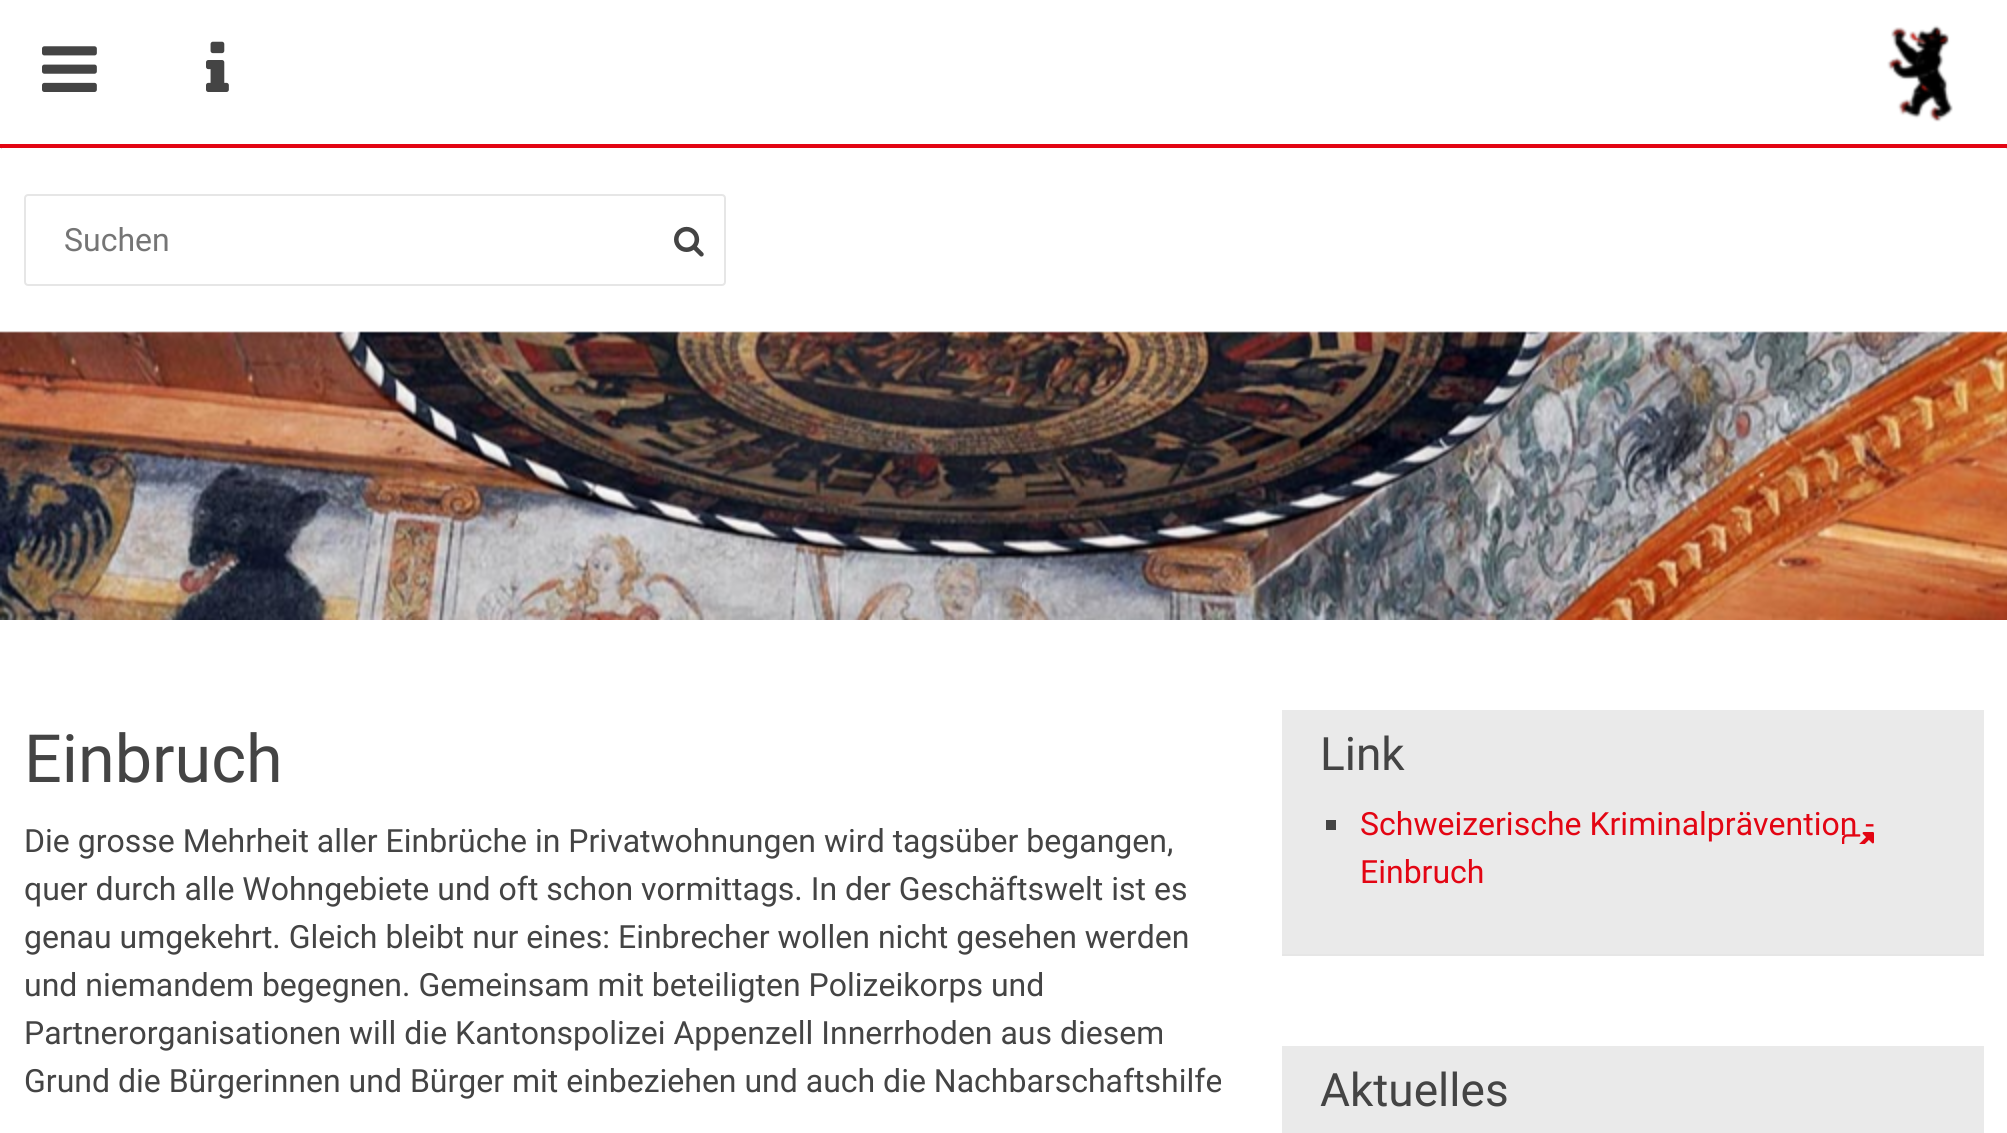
#include <cairo/cairo.h>
#include <math.h>
#include <stddef.h>


static void rounded_rect(cairo_t *cr, double x, double y, double w, double h, double r) {
  cairo_new_sub_path(cr);
  cairo_arc(cr, x + w - r, y + h - r, r, 0, M_PI / 2);
  cairo_arc(cr, x + r, y + h - r, r, M_PI / 2, M_PI);
  cairo_arc(cr, x + r, y + r, r, M_PI, 1.5 * M_PI);
  cairo_arc(cr, x + w - r, y + r, r, 1.5 * M_PI, 2 * M_PI);
  cairo_close_path(cr);
}

static void draw_image(cairo_t *cr, const char *path, double x, double y, double w, double h) {
  cairo_surface_t *image = cairo_image_surface_create_from_png(path);
  cairo_save(cr);
  cairo_set_source_surface(cr, image, x, y);
  cairo_rectangle(cr, x, y, w, h);
  cairo_fill(cr);
  cairo_restore(cr);
  cairo_surface_destroy(image);
}

static void draw(cairo_t *cr) {
  cairo_set_source_rgb(cr, 1, 1, 1);
  cairo_paint(cr);
  draw_image(cr, "images/1.png", 1, 148, 2006, 2);
  cairo_set_source_rgb(cr, 227 / 255.0, 5 / 255.0, 19 / 255.0);
  cairo_rectangle(cr, 0, 144, 2007, 4);
  cairo_fill(cr);
  draw_image(cr, "images/2.png", 42, 46, 55, 46);
  draw_image(cr, "images/3.png", 206, 41, 23, 51);
  draw_image(cr, "images/4.png", 1887, 25, 66, 97);
  cairo_set_source_rgb(cr, 1, 1, 1);
  rounded_rect(cr, 0, 148, 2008, 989, 4);
  cairo_fill(cr);
  rounded_rect(cr, 25, 195, 700, 90, 3);
  cairo_set_source_rgb(cr, 230 / 255.0, 230 / 255.0, 230 / 255.0);
  cairo_stroke(cr);
  draw_image(cr, "images/5.png", 674, 226, 30, 31);
  draw_image(cr, "images/6.png", 0, 331, 2007, 289);
  cairo_set_source_rgb(cr, 234 / 255.0, 234 / 255.0, 234 / 255.0);
  cairo_rectangle(cr, 1282, 710, 702, 244);
  cairo_fill(cr);
  cairo_set_source_rgb(cr, 230 / 255.0, 230 / 255.0, 230 / 255.0);
  cairo_rectangle(cr, 1282, 954, 702, 2);
  cairo_fill(cr);
  cairo_set_source_rgb(cr, 68 / 255.0, 68 / 255.0, 68 / 255.0);
  cairo_rectangle(cr, 1326, 820, 10, 10);
  cairo_fill(cr);
  draw_image(cr, "images/7.png", 1842, 832, 32, 12);
  cairo_set_source_rgb(cr, 234 / 255.0, 234 / 255.0, 234 / 255.0);
  cairo_rectangle(cr, 1282, 1046, 702, 87);
  cairo_fill(cr);
  cairo_select_font_face(cr, "Roboto", CAIRO_FONT_SLANT_NORMAL, CAIRO_FONT_WEIGHT_NORMAL);
  cairo_set_font_size(cr, 32);
  cairo_set_source_rgb(cr, 117 / 255.0, 117 / 255.0, 117 / 255.0);
  cairo_move_to(cr, 64, 251);
  cairo_show_text(cr, "Suchen");
  cairo_set_font_size(cr, 66.5);
  cairo_set_source_rgb(cr, 68 / 255.0, 68 / 255.0, 68 / 255.0);
  cairo_move_to(cr, 24, 782);
  cairo_show_text(cr, "Einbruch");
  cairo_set_font_size(cr, 32);
  cairo_move_to(cr, 24, 852);
  cairo_show_text(cr, "Die grosse Mehrheit aller Einbrüche in Privatwohnungen wird tagsüber begangen,");
  cairo_move_to(cr, 24, 900);
  cairo_show_text(cr, "quer durch alle Wohngebiete und oft schon vormittags. In der Geschäftswelt ist es");
  cairo_move_to(cr, 24, 948);
  cairo_show_text(cr, "genau umgekehrt. Gleich bleibt nur eines: Einbrecher wollen nicht gesehen werden");
  cairo_move_to(cr, 24, 996);
  cairo_show_text(cr, "und niemandem begegnen. Gemeinsam mit beteiligten Polizeikorps und");
  cairo_move_to(cr, 24, 1044);
  cairo_show_text(cr, "Partnerorganisationen will die Kantonspolizei Appenzell Innerrhoden aus diesem");
  cairo_move_to(cr, 24, 1092);
  cairo_show_text(cr, "Grund die Bürgerinnen und Bürger mit einbeziehen und auch die Nachbarschaftshilfe");
  cairo_set_font_size(cr, 46);
  cairo_move_to(cr, 1320, 770);
  cairo_show_text(cr, "Link");
  cairo_set_font_size(cr, 32);
  cairo_set_source_rgb(cr, 227 / 255.0, 5 / 255.0, 19 / 255.0);
  cairo_move_to(cr, 1360, 835);
  cairo_show_text(cr, "Schweizerische Kriminalprävention -");
  cairo_move_to(cr, 1360, 883);
  cairo_show_text(cr, "Einbruch");
  cairo_set_font_size(cr, 46);
  cairo_set_source_rgb(cr, 68 / 255.0, 68 / 255.0, 68 / 255.0);
  cairo_move_to(cr, 1320, 1106);
  cairo_show_text(cr, "Aktuelles");
}

int main(void) {
  cairo_surface_t *surface = cairo_image_surface_create(CAIRO_FORMAT_RGB24, 2007, 1133);
  cairo_t *cr = cairo_create(surface);
  cairo_font_options_t *options = cairo_font_options_create();
  cairo_font_options_set_hint_metrics(options, CAIRO_HINT_METRICS_OFF);
  cairo_font_options_set_hint_style(options, CAIRO_HINT_STYLE_NONE);
  cairo_set_font_options(cr, options);
  cairo_set_miter_limit(cr, 4);
  draw(cr);
  cairo_surface_write_to_png(surface, "out.png");
  cairo_font_options_destroy(options);
  cairo_destroy(cr);
  cairo_surface_destroy(surface);
  return 0;
}
